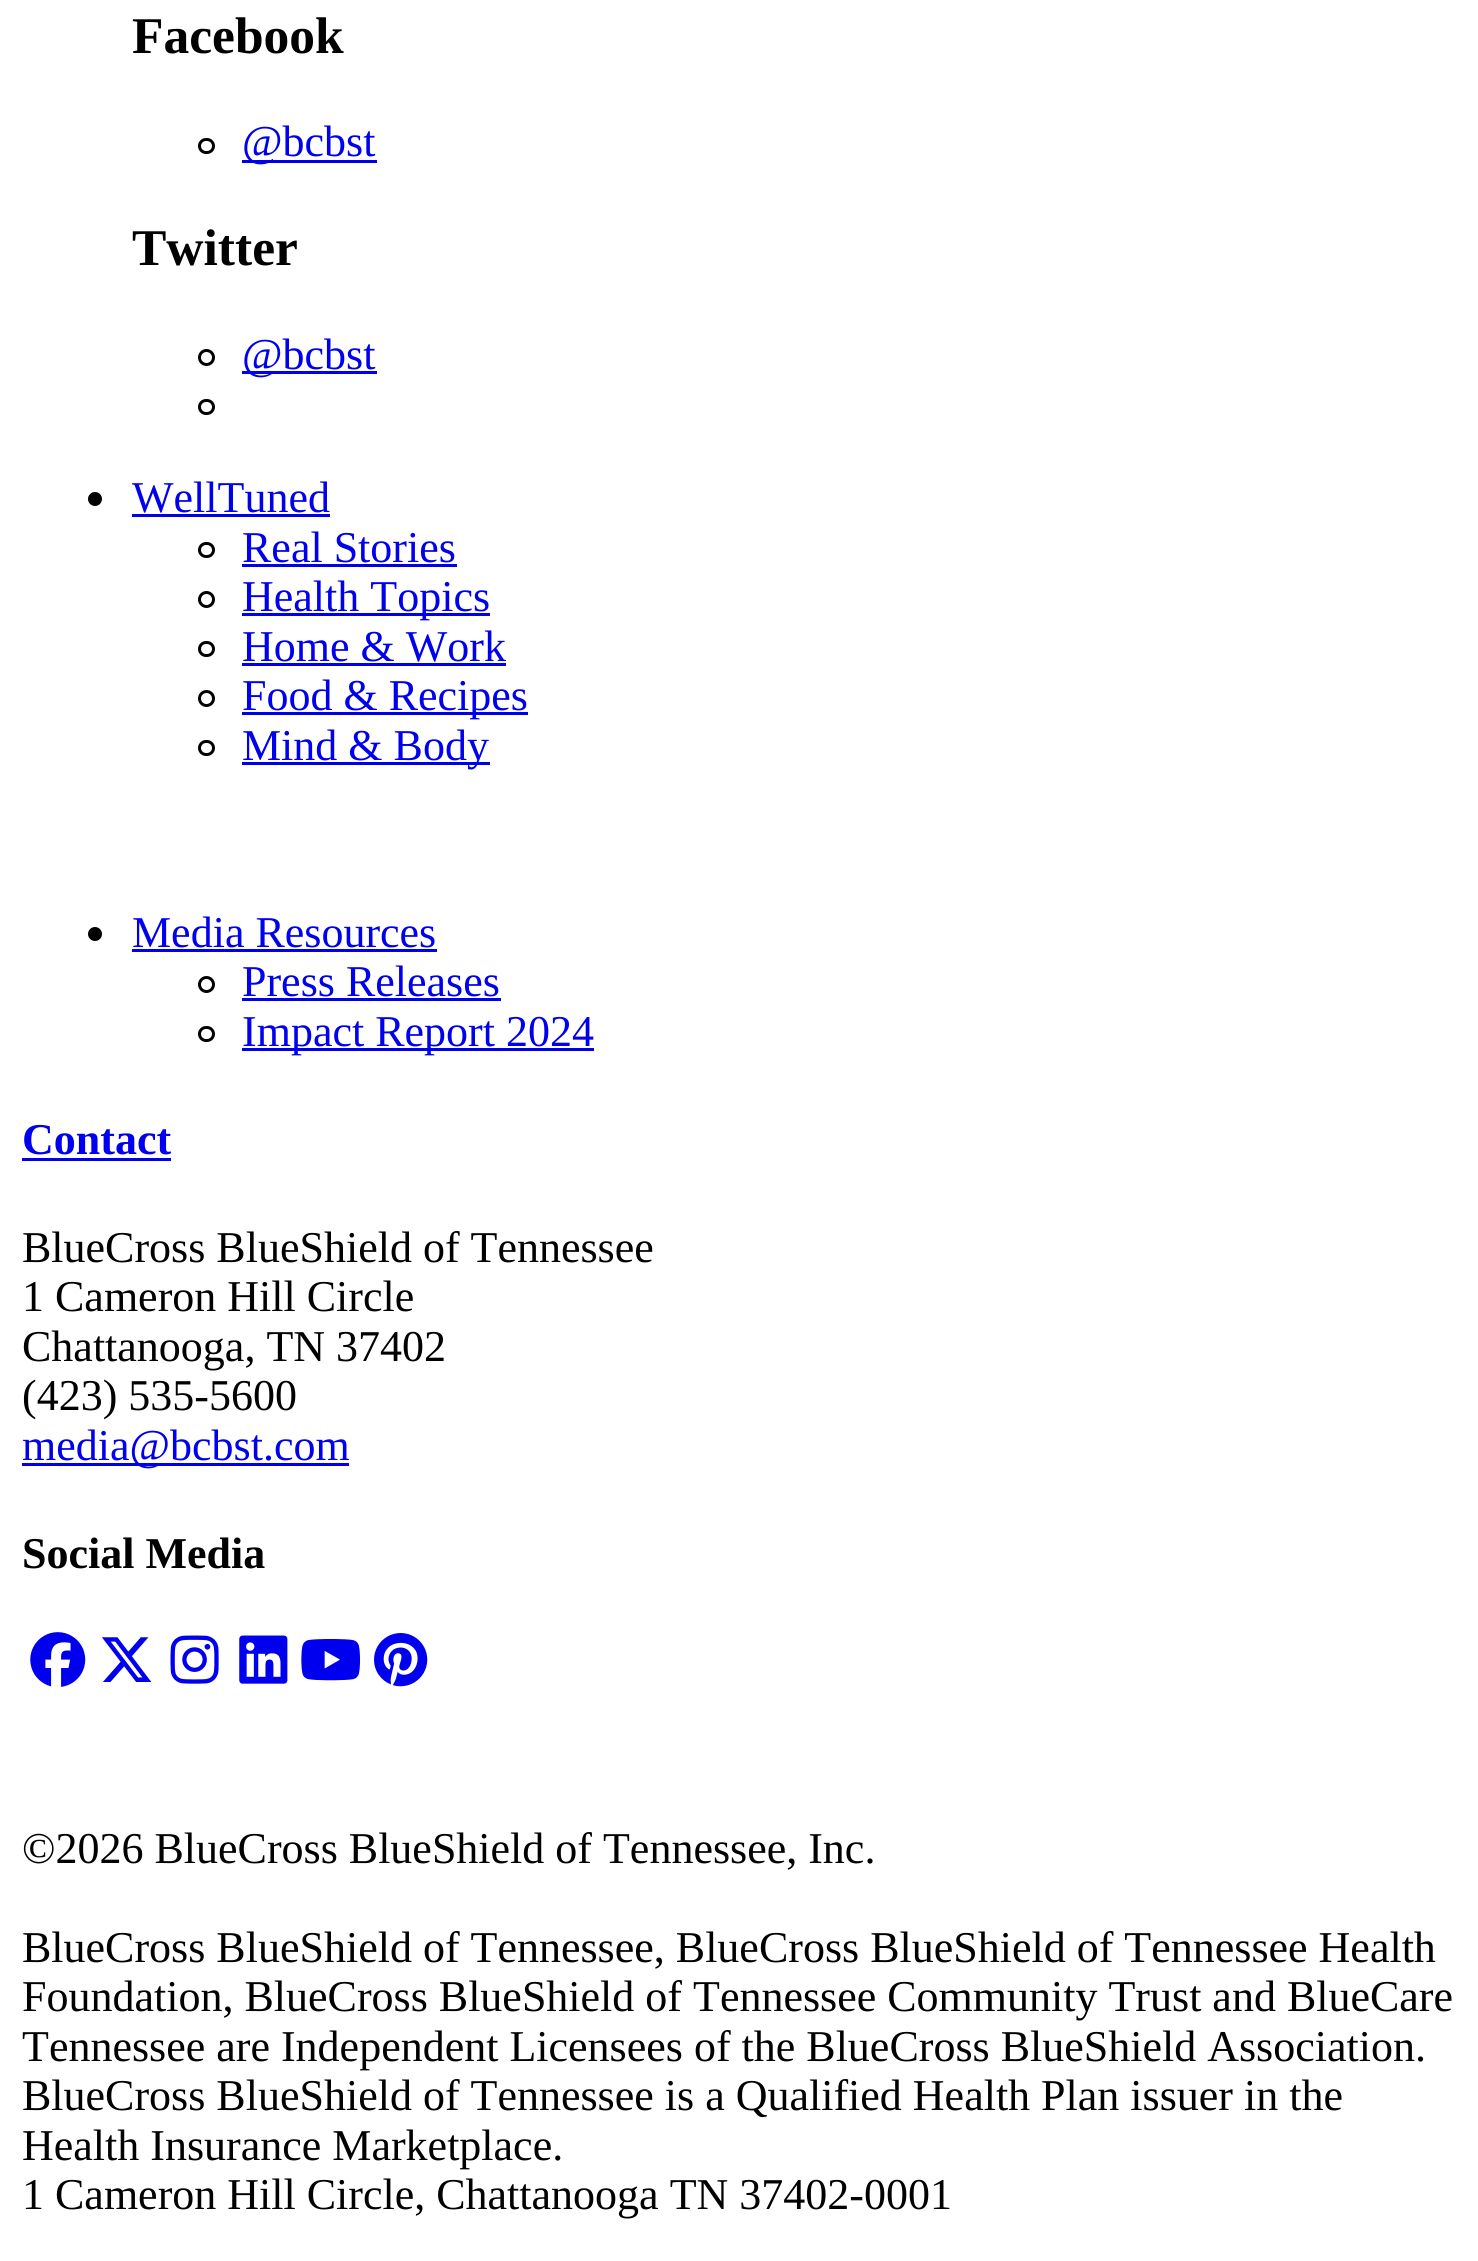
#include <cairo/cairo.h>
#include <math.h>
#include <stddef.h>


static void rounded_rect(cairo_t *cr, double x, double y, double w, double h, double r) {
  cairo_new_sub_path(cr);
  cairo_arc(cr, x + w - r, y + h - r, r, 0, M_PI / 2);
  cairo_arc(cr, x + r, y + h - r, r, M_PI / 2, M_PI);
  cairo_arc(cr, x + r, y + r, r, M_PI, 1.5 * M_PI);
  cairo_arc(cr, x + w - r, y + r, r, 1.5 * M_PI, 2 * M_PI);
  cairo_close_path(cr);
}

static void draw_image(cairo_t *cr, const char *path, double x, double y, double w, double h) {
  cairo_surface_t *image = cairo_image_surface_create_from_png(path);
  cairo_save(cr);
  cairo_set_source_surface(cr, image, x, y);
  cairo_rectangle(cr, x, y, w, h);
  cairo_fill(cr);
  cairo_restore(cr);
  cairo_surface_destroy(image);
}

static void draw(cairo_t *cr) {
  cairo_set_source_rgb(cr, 1, 1, 1);
  cairo_paint(cr);
  rounded_rect(cr, 199.5, 139.5, 14, 13, 6.5);
  cairo_set_source_rgb(cr, 0, 0, 0);
  cairo_set_line_width(cr, 3);
  cairo_stroke(cr);
  cairo_set_source_rgb(cr, 0, 0, 238 / 255.0);
  cairo_rectangle(cr, 242, 160, 135, 3);
  cairo_fill(cr);
  cairo_arc(cr, 206.5, 357.5, 7, 0, 2 * M_PI);
  cairo_set_source_rgb(cr, 0, 0, 0);
  cairo_stroke(cr);
  cairo_set_source_rgb(cr, 0, 0, 238 / 255.0);
  cairo_rectangle(cr, 242, 371, 135, 3);
  cairo_fill(cr);
  rounded_rect(cr, 199.5, 400.5, 14, 13, 6.5);
  cairo_set_source_rgb(cr, 0, 0, 0);
  cairo_stroke(cr);
  cairo_arc(cr, 95, 499, 7, 0, 2 * M_PI);
  cairo_fill(cr);
  cairo_set_source_rgb(cr, 0, 0, 238 / 255.0);
  cairo_rectangle(cr, 132, 514, 198, 3);
  cairo_fill(cr);
  rounded_rect(cr, 199.5, 543.5, 14, 13, 6.5);
  cairo_set_source_rgb(cr, 0, 0, 0);
  cairo_stroke(cr);
  cairo_set_source_rgb(cr, 0, 0, 238 / 255.0);
  cairo_rectangle(cr, 242, 564, 215, 3);
  cairo_fill(cr);
  cairo_arc(cr, 206.5, 599.5, 7, 0, 2 * M_PI);
  cairo_set_source_rgb(cr, 0, 0, 0);
  cairo_stroke(cr);
  cairo_set_source_rgb(cr, 0, 0, 238 / 255.0);
  cairo_rectangle(cr, 242, 613, 248, 3);
  cairo_fill(cr);
  rounded_rect(cr, 199.5, 642.5, 14, 13, 6.5);
  cairo_set_source_rgb(cr, 0, 0, 0);
  cairo_stroke(cr);
  cairo_set_source_rgb(cr, 0, 0, 238 / 255.0);
  cairo_rectangle(cr, 242, 663, 264, 3);
  cairo_fill(cr);
  cairo_arc(cr, 206.5, 698.5, 7, 0, 2 * M_PI);
  cairo_set_source_rgb(cr, 0, 0, 0);
  cairo_stroke(cr);
  cairo_set_source_rgb(cr, 0, 0, 238 / 255.0);
  cairo_rectangle(cr, 242, 712, 286, 3);
  cairo_fill(cr);
  rounded_rect(cr, 199.5, 741.5, 14, 13, 6.5);
  cairo_set_source_rgb(cr, 0, 0, 0);
  cairo_stroke(cr);
  cairo_set_source_rgb(cr, 0, 0, 238 / 255.0);
  cairo_rectangle(cr, 242, 762, 248, 3);
  cairo_fill(cr);
  cairo_set_source_rgb(cr, 0, 0, 0);
  cairo_arc(cr, 95, 934, 7, 0, 2 * M_PI);
  cairo_fill(cr);
  cairo_set_source_rgb(cr, 0, 0, 238 / 255.0);
  cairo_rectangle(cr, 132, 949, 305, 3);
  cairo_fill(cr);
  cairo_arc(cr, 206.5, 984.5, 7, 0, 2 * M_PI);
  cairo_set_source_rgb(cr, 0, 0, 0);
  cairo_stroke(cr);
  cairo_set_source_rgb(cr, 0, 0, 238 / 255.0);
  cairo_rectangle(cr, 242, 998, 259, 3);
  cairo_fill(cr);
  rounded_rect(cr, 199.5, 1027.5, 14, 13, 6.5);
  cairo_set_source_rgb(cr, 0, 0, 0);
  cairo_stroke(cr);
  cairo_set_source_rgb(cr, 0, 0, 238 / 255.0);
  cairo_rectangle(cr, 242, 1048, 352, 3);
  cairo_fill(cr);
  cairo_rectangle(cr, 22, 1158, 149, 3);
  cairo_fill(cr);
  cairo_rectangle(cr, 22, 1463, 327, 3);
  cairo_fill(cr);
  draw_image(cr, "images/1.png", 30, 1632, 56, 55);
  draw_image(cr, "images/2.png", 102, 1637, 50, 45);
  draw_image(cr, "images/3.png", 170, 1635, 49, 49);
  draw_image(cr, "images/4.png", 239, 1635, 49, 49);
  draw_image(cr, "images/5.png", 301, 1639, 59, 42);
  draw_image(cr, "images/6.png", 374, 1633, 54, 54);
  cairo_select_font_face(cr, "Liberation Serif", CAIRO_FONT_SLANT_NORMAL, CAIRO_FONT_WEIGHT_BOLD);
  cairo_set_font_size(cr, 51.5);
  cairo_set_source_rgb(cr, 0, 0, 0);
  cairo_move_to(cr, 132, 53);
  cairo_show_text(cr, "Facebook");
  cairo_select_font_face(cr, "Liberation Serif", CAIRO_FONT_SLANT_NORMAL, CAIRO_FONT_WEIGHT_NORMAL);
  cairo_set_font_size(cr, 44);
  cairo_set_source_rgb(cr, 0, 0, 238 / 255.0);
  cairo_move_to(cr, 242, 156);
  cairo_show_text(cr, "@bcbst");
  cairo_select_font_face(cr, "Liberation Serif", CAIRO_FONT_SLANT_NORMAL, CAIRO_FONT_WEIGHT_BOLD);
  cairo_set_font_size(cr, 51.5);
  cairo_set_source_rgb(cr, 0, 0, 0);
  cairo_move_to(cr, 132, 265);
  cairo_show_text(cr, "Twitter");
  cairo_select_font_face(cr, "Liberation Serif", CAIRO_FONT_SLANT_NORMAL, CAIRO_FONT_WEIGHT_NORMAL);
  cairo_set_font_size(cr, 44);
  cairo_set_source_rgb(cr, 0, 0, 238 / 255.0);
  cairo_move_to(cr, 242, 369);
  cairo_show_text(cr, "@bcbst");
  cairo_move_to(cr, 132, 512);
  cairo_show_text(cr, "WellTuned");
  cairo_move_to(cr, 242, 562);
  cairo_show_text(cr, "Real Stories");
  cairo_move_to(cr, 242, 611);
  cairo_show_text(cr, "Health Topics");
  cairo_move_to(cr, 242, 661);
  cairo_show_text(cr, "Home & Work");
  cairo_move_to(cr, 242, 710);
  cairo_show_text(cr, "Food & Recipes");
  cairo_move_to(cr, 242, 760);
  cairo_show_text(cr, "Mind & Body");
  cairo_move_to(cr, 132, 947);
  cairo_show_text(cr, "Media Resources");
  cairo_move_to(cr, 242, 996);
  cairo_show_text(cr, "Press Releases");
  cairo_move_to(cr, 242, 1046);
  cairo_show_text(cr, "Impact Report 2024");
  cairo_select_font_face(cr, "Liberation Serif", CAIRO_FONT_SLANT_NORMAL, CAIRO_FONT_WEIGHT_BOLD);
  cairo_move_to(cr, 22, 1154);
  cairo_show_text(cr, "Contact");
  cairo_select_font_face(cr, "Liberation Serif", CAIRO_FONT_SLANT_NORMAL, CAIRO_FONT_WEIGHT_NORMAL);
  cairo_set_source_rgb(cr, 0, 0, 0);
  cairo_move_to(cr, 22, 1262);
  cairo_show_text(cr, "BlueCross BlueShield of Tennessee");
  cairo_move_to(cr, 22, 1311);
  cairo_show_text(cr, "1 Cameron Hill Circle");
  cairo_move_to(cr, 22, 1361);
  cairo_show_text(cr, "Chattanooga, TN 37402");
  cairo_move_to(cr, 22, 1410);
  cairo_show_text(cr, "(423) 535-5600");
  cairo_set_source_rgb(cr, 0, 0, 238 / 255.0);
  cairo_move_to(cr, 22, 1460);
  cairo_show_text(cr, "media@bcbst.com");
  cairo_select_font_face(cr, "Liberation Serif", CAIRO_FONT_SLANT_NORMAL, CAIRO_FONT_WEIGHT_BOLD);
  cairo_set_source_rgb(cr, 0, 0, 0);
  cairo_move_to(cr, 22, 1568);
  cairo_show_text(cr, "Social Media");
  cairo_select_font_face(cr, "Liberation Serif", CAIRO_FONT_SLANT_NORMAL, CAIRO_FONT_WEIGHT_NORMAL);
  cairo_move_to(cr, 22, 1863);
  cairo_show_text(cr, "©2026 BlueCross BlueShield of Tennessee, Inc.");
  cairo_move_to(cr, 22, 1962);
  cairo_show_text(cr, "BlueCross BlueShield of Tennessee, BlueCross BlueShield of Tennessee Health");
  cairo_move_to(cr, 22, 2011);
  cairo_show_text(cr, "Foundation, BlueCross BlueShield of Tennessee Community Trust and BlueCare");
  cairo_move_to(cr, 22, 2061);
  cairo_show_text(cr, "Tennessee are Independent Licensees of the BlueCross BlueShield Association.");
  cairo_move_to(cr, 22, 2110);
  cairo_show_text(cr, "BlueCross BlueShield of Tennessee is a Qualified Health Plan issuer in the");
  cairo_move_to(cr, 22, 2160);
  cairo_show_text(cr, "Health Insurance Marketplace.");
  cairo_move_to(cr, 22, 2209);
  cairo_show_text(cr, "1 Cameron Hill Circle, Chattanooga TN 37402-0001");
}

int main(void) {
  cairo_surface_t *surface = cairo_image_surface_create(CAIRO_FORMAT_RGB24, 1478, 2261);
  cairo_t *cr = cairo_create(surface);
  cairo_font_options_t *options = cairo_font_options_create();
  cairo_font_options_set_hint_metrics(options, CAIRO_HINT_METRICS_OFF);
  cairo_font_options_set_hint_style(options, CAIRO_HINT_STYLE_NONE);
  cairo_set_font_options(cr, options);
  cairo_set_miter_limit(cr, 4);
  draw(cr);
  cairo_surface_write_to_png(surface, "out.png");
  cairo_font_options_destroy(options);
  cairo_destroy(cr);
  cairo_surface_destroy(surface);
  return 0;
}
